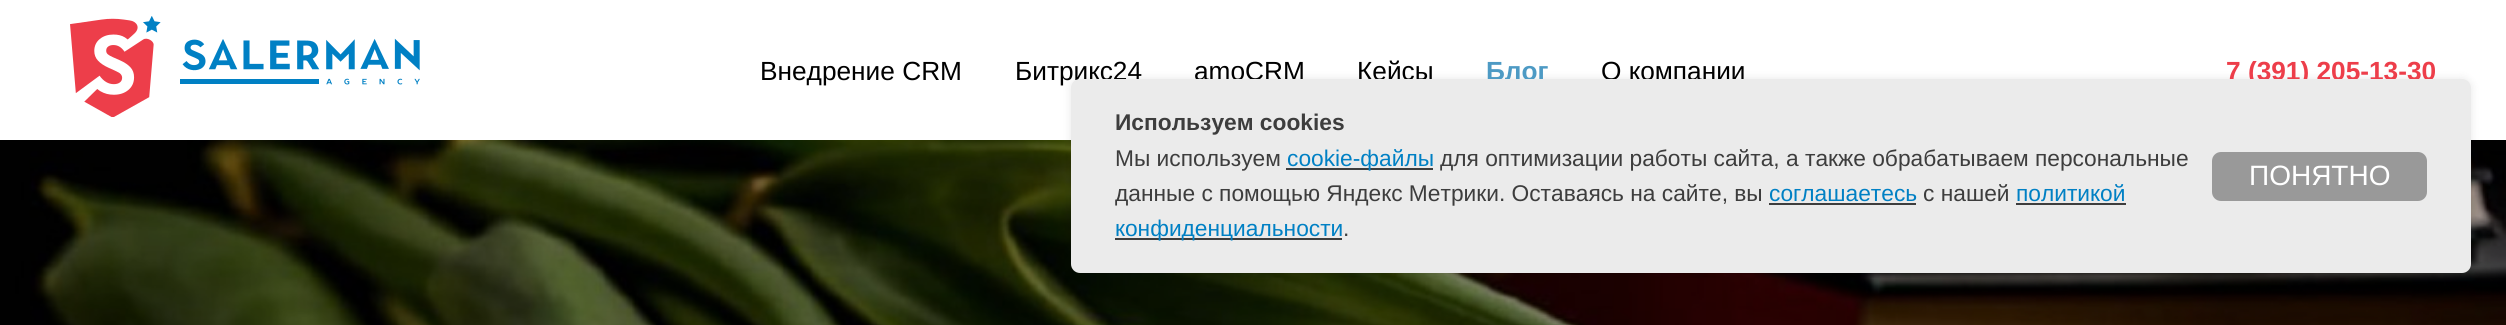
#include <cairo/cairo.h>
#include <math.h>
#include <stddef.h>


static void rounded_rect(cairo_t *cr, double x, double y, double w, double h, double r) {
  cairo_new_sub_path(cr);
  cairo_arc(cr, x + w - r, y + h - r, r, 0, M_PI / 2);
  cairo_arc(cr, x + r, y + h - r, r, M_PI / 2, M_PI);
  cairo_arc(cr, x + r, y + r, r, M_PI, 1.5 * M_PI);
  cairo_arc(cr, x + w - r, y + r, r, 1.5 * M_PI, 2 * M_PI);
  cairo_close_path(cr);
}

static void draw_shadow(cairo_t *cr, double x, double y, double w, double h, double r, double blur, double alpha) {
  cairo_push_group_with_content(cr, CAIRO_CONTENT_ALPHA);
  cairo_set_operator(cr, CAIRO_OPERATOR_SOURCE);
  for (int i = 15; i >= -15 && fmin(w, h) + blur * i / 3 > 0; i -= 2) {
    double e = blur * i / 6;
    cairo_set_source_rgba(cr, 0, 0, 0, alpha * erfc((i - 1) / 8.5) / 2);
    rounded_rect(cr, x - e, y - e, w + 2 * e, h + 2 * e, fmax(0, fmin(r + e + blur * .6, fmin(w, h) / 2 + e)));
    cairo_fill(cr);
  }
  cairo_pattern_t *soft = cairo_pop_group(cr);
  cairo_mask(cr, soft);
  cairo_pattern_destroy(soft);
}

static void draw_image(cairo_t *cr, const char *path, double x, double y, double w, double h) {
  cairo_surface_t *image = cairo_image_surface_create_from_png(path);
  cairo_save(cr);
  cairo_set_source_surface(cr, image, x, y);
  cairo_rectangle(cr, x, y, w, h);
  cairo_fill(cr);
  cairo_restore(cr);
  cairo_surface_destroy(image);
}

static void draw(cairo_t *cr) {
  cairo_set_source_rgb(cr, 1, 1, 1);
  cairo_paint(cr);
  draw_image(cr, "images/1.png", 70, 16, 350, 101);
  draw_image(cr, "images/2.png", 0, 140, 2506, 185);
  cairo_set_source_rgb(cr, 0, 0, 0);
  draw_shadow(cr, 1071, 79, 1400, 194, 9, 4.5, 0.1);
  cairo_select_font_face(cr, "Liberation Sans", CAIRO_FONT_SLANT_NORMAL, CAIRO_FONT_WEIGHT_NORMAL);
  cairo_set_font_size(cr, 26.25);
  cairo_set_source_rgb(cr, 0, 0, 0);
  cairo_move_to(cr, 760, 80);
  cairo_show_text(cr, "Внедрение CRM");
  cairo_move_to(cr, 1015, 80);
  cairo_show_text(cr, "Битрикс24");
  cairo_move_to(cr, 1194, 80);
  cairo_show_text(cr, "amoCRM");
  cairo_move_to(cr, 1357, 80);
  cairo_show_text(cr, "Кейсы");
  cairo_select_font_face(cr, "Liberation Sans", CAIRO_FONT_SLANT_NORMAL, CAIRO_FONT_WEIGHT_BOLD);
  cairo_set_source_rgb(cr, 77 / 255.0, 154 / 255.0, 196 / 255.0);
  cairo_move_to(cr, 1486, 80);
  cairo_show_text(cr, "Блог");
  cairo_select_font_face(cr, "Liberation Sans", CAIRO_FONT_SLANT_NORMAL, CAIRO_FONT_WEIGHT_NORMAL);
  cairo_set_source_rgb(cr, 0, 0, 0);
  cairo_move_to(cr, 1601, 80);
  cairo_show_text(cr, "О компании");
  cairo_select_font_face(cr, "Liberation Sans", CAIRO_FONT_SLANT_NORMAL, CAIRO_FONT_WEIGHT_BOLD);
  cairo_set_source_rgb(cr, 237 / 255.0, 62 / 255.0, 74 / 255.0);
  cairo_move_to(cr, 2226, 80);
  cairo_show_text(cr, "7 (391) 205-13-30");
  cairo_set_source_rgb(cr, 235 / 255.0, 235 / 255.0, 235 / 255.0);
  rounded_rect(cr, 1071, 79, 1400, 194, 9);
  cairo_fill(cr);
  cairo_set_font_size(cr, 22.75);
  cairo_set_source_rgb(cr, 61 / 255.0, 61 / 255.0, 61 / 255.0);
  cairo_move_to(cr, 1115, 130);
  cairo_show_text(cr, "Используем cookies");
  cairo_select_font_face(cr, "Liberation Sans", CAIRO_FONT_SLANT_NORMAL, CAIRO_FONT_WEIGHT_NORMAL);
  cairo_move_to(cr, 1115, 166);
  cairo_show_text(cr, "Мы используем");
  cairo_rectangle(cr, 1286, 168, 147, 2);
  cairo_fill(cr);
  cairo_set_source_rgb(cr, 0, 128 / 255.0, 196 / 255.0);
  cairo_move_to(cr, 1287, 166);
  cairo_show_text(cr, "cookie-файлы");
  cairo_set_source_rgb(cr, 61 / 255.0, 61 / 255.0, 61 / 255.0);
  cairo_move_to(cr, 1440, 166);
  cairo_show_text(cr, "для оптимизации работы сайта, а также обрабатываем персональные");
  cairo_move_to(cr, 1115, 201);
  cairo_show_text(cr, "данные с помощью Яндекс Метрики. Оставаясь на сайте, вы");
  cairo_set_source_rgb(cr, 0, 128 / 255.0, 196 / 255.0);
  cairo_move_to(cr, 1769, 201);
  cairo_show_text(cr, "соглашаетесь");
  cairo_set_source_rgb(cr, 61 / 255.0, 61 / 255.0, 61 / 255.0);
  cairo_rectangle(cr, 1769, 203, 147, 2);
  cairo_fill(cr);
  cairo_move_to(cr, 1923, 201);
  cairo_show_text(cr, "с нашей");
  cairo_set_source_rgb(cr, 0, 128 / 255.0, 196 / 255.0);
  cairo_move_to(cr, 2016, 201);
  cairo_show_text(cr, "политикой");
  cairo_set_source_rgb(cr, 61 / 255.0, 61 / 255.0, 61 / 255.0);
  cairo_rectangle(cr, 2016, 203, 110, 2);
  cairo_fill(cr);
  cairo_rectangle(cr, 1115, 238, 227, 2);
  cairo_fill(cr);
  cairo_set_source_rgb(cr, 0, 128 / 255.0, 196 / 255.0);
  cairo_move_to(cr, 1115, 236);
  cairo_show_text(cr, "конфиденциальности");
  cairo_set_source_rgb(cr, 61 / 255.0, 61 / 255.0, 61 / 255.0);
  cairo_move_to(cr, 1343, 236);
  cairo_show_text(cr, ".");
  cairo_set_source_rgb(cr, 153 / 255.0, 153 / 255.0, 153 / 255.0);
  rounded_rect(cr, 2213, 153, 213, 47, 8);
  cairo_fill_preserve(cr);
  cairo_stroke(cr);
  cairo_set_font_size(cr, 28);
  cairo_set_source_rgb(cr, 1, 1, 1);
  cairo_move_to(cr, 2249, 185);
  cairo_show_text(cr, "ПОНЯТНО");
}

int main(void) {
  cairo_surface_t *surface = cairo_image_surface_create(CAIRO_FORMAT_RGB24, 2506, 325);
  cairo_t *cr = cairo_create(surface);
  cairo_font_options_t *options = cairo_font_options_create();
  cairo_font_options_set_hint_metrics(options, CAIRO_HINT_METRICS_OFF);
  cairo_font_options_set_hint_style(options, CAIRO_HINT_STYLE_NONE);
  cairo_set_font_options(cr, options);
  cairo_set_miter_limit(cr, 4);
  draw(cr);
  cairo_surface_write_to_png(surface, "out.png");
  cairo_font_options_destroy(options);
  cairo_destroy(cr);
  cairo_surface_destroy(surface);
  return 0;
}
